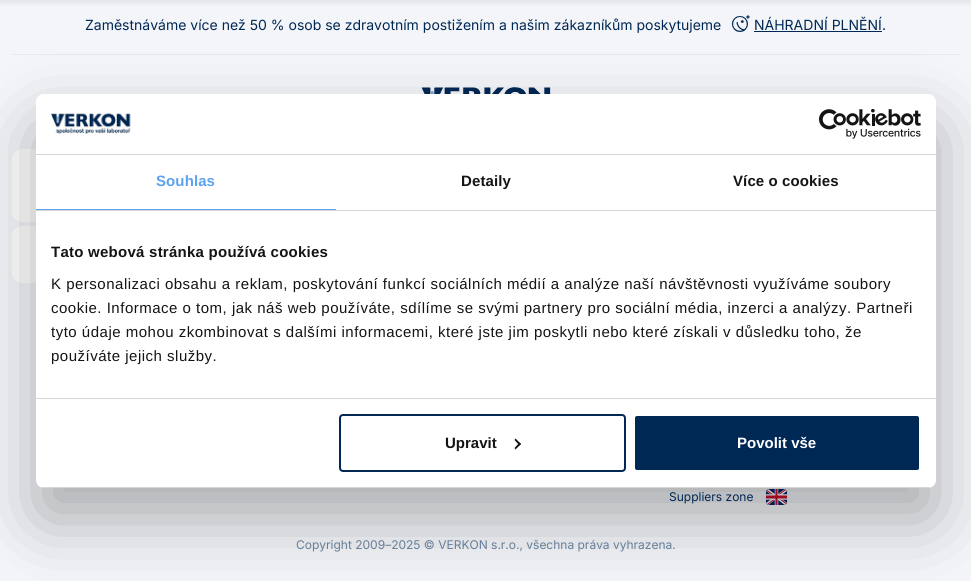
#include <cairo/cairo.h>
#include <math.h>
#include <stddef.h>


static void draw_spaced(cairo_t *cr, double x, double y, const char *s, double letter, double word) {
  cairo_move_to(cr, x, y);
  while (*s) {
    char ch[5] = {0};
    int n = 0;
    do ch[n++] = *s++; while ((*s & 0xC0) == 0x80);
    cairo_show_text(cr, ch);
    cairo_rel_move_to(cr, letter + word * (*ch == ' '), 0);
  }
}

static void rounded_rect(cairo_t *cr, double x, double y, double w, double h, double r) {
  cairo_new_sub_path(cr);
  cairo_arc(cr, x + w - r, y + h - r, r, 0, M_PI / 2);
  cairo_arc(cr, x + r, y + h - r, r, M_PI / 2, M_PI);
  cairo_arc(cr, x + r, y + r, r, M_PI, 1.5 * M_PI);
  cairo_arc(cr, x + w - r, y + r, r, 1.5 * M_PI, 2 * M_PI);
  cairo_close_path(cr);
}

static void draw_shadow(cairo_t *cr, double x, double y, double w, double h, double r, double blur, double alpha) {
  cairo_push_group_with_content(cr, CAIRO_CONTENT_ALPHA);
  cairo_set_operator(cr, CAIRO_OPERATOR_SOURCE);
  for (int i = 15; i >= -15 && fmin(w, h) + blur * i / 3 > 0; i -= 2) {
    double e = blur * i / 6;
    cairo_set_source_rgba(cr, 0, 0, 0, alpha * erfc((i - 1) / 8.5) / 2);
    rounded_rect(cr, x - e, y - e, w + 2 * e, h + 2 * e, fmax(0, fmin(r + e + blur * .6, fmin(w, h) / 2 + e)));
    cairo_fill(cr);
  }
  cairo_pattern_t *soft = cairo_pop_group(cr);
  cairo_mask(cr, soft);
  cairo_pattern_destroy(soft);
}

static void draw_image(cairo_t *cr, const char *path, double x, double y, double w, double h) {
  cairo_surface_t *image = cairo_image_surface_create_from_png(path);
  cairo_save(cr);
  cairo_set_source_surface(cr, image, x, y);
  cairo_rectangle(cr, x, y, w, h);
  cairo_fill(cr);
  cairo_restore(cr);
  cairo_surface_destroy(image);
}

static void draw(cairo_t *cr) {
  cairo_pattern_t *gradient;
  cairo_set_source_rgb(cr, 243 / 255.0, 245 / 255.0, 248 / 255.0);
  cairo_paint(cr);
  gradient = cairo_pattern_create_linear(486, 0, 486, 7);
  cairo_pattern_add_color_stop_rgba(gradient, 0, 228 / 255.0, 230 / 255.0, 233 / 255.0, 1);
  cairo_pattern_add_color_stop_rgba(gradient, 1, 243 / 255.0, 245 / 255.0, 248 / 255.0, 1);
  cairo_set_source(cr, gradient);
  cairo_pattern_destroy(gradient);
  cairo_rectangle(cr, 0, 0, 971, 6);
  cairo_fill(cr);
  cairo_set_source_rgb(cr, 230 / 255.0, 234 / 255.0, 238 / 255.0);
  cairo_rectangle(cr, 12, 54, 947, 1);
  cairo_fill(cr);
  draw_image(cr, "images/1.png", 731, 15, 19, 17);
  cairo_set_source_rgb(cr, 0, 40 / 255.0, 85 / 255.0);
  cairo_rectangle(cr, 754, 31, 128, 1);
  cairo_fill(cr);
  draw_image(cr, "images/2.png", 421, 87, 130, 7);
  cairo_set_source_rgb(cr, 1, 1, 1);
  rounded_rect(cr, 12, 149, 462, 73, 10);
  cairo_fill(cr);
  rounded_rect(cr, 12, 226, 462, 57, 10);
  cairo_fill(cr);
  draw_image(cr, "images/3.png", 765, 489, 23, 16);
  cairo_set_source_rgb(cr, 0, 0, 0);
  draw_shadow(cr, 36, 126, 900, 394, 8, 34, 0.3);
  cairo_set_source_rgb(cr, 1, 1, 1);
  rounded_rect(cr, 36, 94, 900, 394, 8);
  cairo_fill(cr);
  cairo_set_source_rgb(cr, 214 / 255.0, 214 / 255.0, 214 / 255.0);
  cairo_rectangle(cr, 36, 154, 900, 1);
  cairo_fill(cr);
  draw_image(cr, "images/4.png", 51, 112, 80, 23);
  draw_image(cr, "images/5.png", 819, 109, 102, 30);
  cairo_rectangle(cr, 36, 210, 900, 1);
  cairo_fill(cr);
  cairo_set_source_rgb(cr, 93 / 255.0, 162 / 255.0, 239 / 255.0);
  cairo_rectangle(cr, 36, 209, 300, 1);
  cairo_fill(cr);
  cairo_set_source_rgb(cr, 214 / 255.0, 214 / 255.0, 214 / 255.0);
  cairo_rectangle(cr, 36, 398, 900, 1);
  cairo_fill(cr);
  cairo_save(cr);
  rounded_rect(cr, 36, 94, 900, 394, 8);
  cairo_clip(cr);
  cairo_rectangle(cr, 36, 487, 900, 1);
  cairo_fill(cr);
  cairo_restore(cr);
  rounded_rect(cr, 340, 415, 285, 56, 3);
  cairo_set_source_rgb(cr, 0, 40 / 255.0, 85 / 255.0);
  cairo_stroke(cr);
  cairo_set_source_rgb(cr, 20 / 255.0, 20 / 255.0, 20 / 255.0);
  cairo_new_path(cr);
  cairo_move_to(cr, 515.5, 438.5);
  cairo_line_to(cr, 521, 444);
  cairo_line_to(cr, 519.5, 445.5);
  cairo_line_to(cr, 514.5, 440);
  cairo_close_path(cr);
  cairo_fill(cr);
  cairo_new_path(cr);
  cairo_move_to(cr, 519.5, 442.5);
  cairo_line_to(cr, 521, 444);
  cairo_line_to(cr, 515.5, 449.5);
  cairo_line_to(cr, 514.5, 448);
  cairo_close_path(cr);
  cairo_fill(cr);
  cairo_set_source_rgb(cr, 0, 40 / 255.0, 85 / 255.0);
  rounded_rect(cr, 634, 415, 286, 56, 3);
  cairo_fill_preserve(cr);
  cairo_set_source_rgb(cr, 1, 1, 1);
  cairo_stroke(cr);
  cairo_select_font_face(cr, "Inter", CAIRO_FONT_SLANT_NORMAL, CAIRO_FONT_WEIGHT_NORMAL);
  cairo_set_font_size(cr, 14);
  cairo_set_source_rgb(cr, 0, 40 / 255.0, 85 / 255.0);
  cairo_move_to(cr, 85, 30);
  cairo_show_text(cr, "Zaměstnáváme více než 50 % osob se zdravotním postižením a našim zákazníkům poskytujeme");
  cairo_move_to(cr, 754, 30);
  cairo_show_text(cr, "NÁHRADNÍ PLNĚNÍ");
  cairo_move_to(cr, 882, 30);
  cairo_show_text(cr, ".");
  cairo_set_font_size(cr, 12);
  cairo_move_to(cr, 669, 501);
  cairo_show_text(cr, "Suppliers zone");
  cairo_set_source_rgb(cr, 102 / 255.0, 126 / 255.0, 153 / 255.0);
  cairo_move_to(cr, 296, 549);
  cairo_show_text(cr, "Copyright 2009–2025 © VERKON s.r.o., všechna práva vyhrazena.");
  cairo_select_font_face(cr, "Liberation Sans", CAIRO_FONT_SLANT_NORMAL, CAIRO_FONT_WEIGHT_BOLD);
  cairo_set_font_size(cr, 15);
  cairo_set_source_rgb(cr, 93 / 255.0, 162 / 255.0, 239 / 255.0);
  draw_spaced(cr, 156, 186, "Souhlas", 0.1, 0);
  cairo_set_source_rgb(cr, 20 / 255.0, 20 / 255.0, 20 / 255.0);
  draw_spaced(cr, 461, 186, "Detaily", 0.1, 0);
  draw_spaced(cr, 733, 186, "Více o cookies", 0.1, 0);
  draw_spaced(cr, 51, 257, "Tato webová stránka používá cookies", 0.25, 0);
  cairo_select_font_face(cr, "Liberation Sans", CAIRO_FONT_SLANT_NORMAL, CAIRO_FONT_WEIGHT_NORMAL);
  draw_spaced(cr, 51, 289, "K personalizaci obsahu a reklam, poskytování funkcí sociálních médií a analýze naší návštěvnosti využíváme soubory", 0.5, 0);
  draw_spaced(cr, 51, 313, "cookie. Informace o tom, jak náš web používáte, sdílíme se svými partnery pro sociální média, inzerci a analýzy. Partneři", 0.5, 0);
  draw_spaced(cr, 51, 337, "tyto údaje mohou zkombinovat s dalšími informacemi, které jste jim poskytli nebo které získali v důsledku toho, že", 0.5, 0);
  draw_spaced(cr, 51, 361, "používáte jejich služby.", 0.5, 0);
  cairo_select_font_face(cr, "Liberation Sans", CAIRO_FONT_SLANT_NORMAL, CAIRO_FONT_WEIGHT_BOLD);
  cairo_move_to(cr, 445, 448);
  cairo_show_text(cr, "Upravit");
  cairo_set_source_rgb(cr, 1, 1, 1);
  cairo_move_to(cr, 737, 448);
  cairo_show_text(cr, "Povolit vše");
}

int main(void) {
  cairo_surface_t *surface = cairo_image_surface_create(CAIRO_FORMAT_RGB24, 971, 581);
  cairo_t *cr = cairo_create(surface);
  cairo_font_options_t *options = cairo_font_options_create();
  cairo_font_options_set_hint_metrics(options, CAIRO_HINT_METRICS_OFF);
  cairo_font_options_set_hint_style(options, CAIRO_HINT_STYLE_NONE);
  cairo_set_font_options(cr, options);
  cairo_set_miter_limit(cr, 4);
  draw(cr);
  cairo_surface_write_to_png(surface, "out.png");
  cairo_font_options_destroy(options);
  cairo_destroy(cr);
  cairo_surface_destroy(surface);
  return 0;
}
